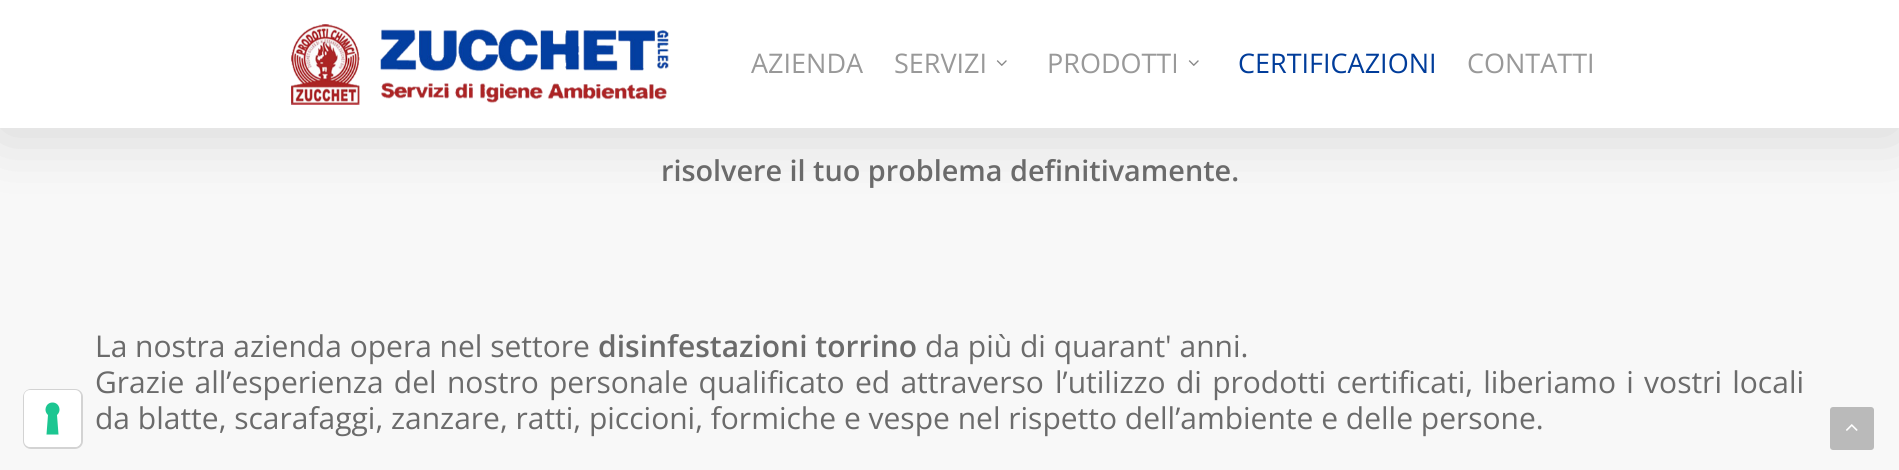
#include <cairo/cairo.h>
#include <math.h>
#include <stddef.h>


static void draw_spaced(cairo_t *cr, double x, double y, const char *s, double letter, double word) {
  cairo_move_to(cr, x, y);
  while (*s) {
    char ch[5] = {0};
    int n = 0;
    do ch[n++] = *s++; while ((*s & 0xC0) == 0x80);
    cairo_show_text(cr, ch);
    cairo_rel_move_to(cr, letter + word * (*ch == ' '), 0);
  }
}

static void rounded_rect(cairo_t *cr, double x, double y, double w, double h, double r) {
  cairo_new_sub_path(cr);
  cairo_arc(cr, x + w - r, y + h - r, r, 0, M_PI / 2);
  cairo_arc(cr, x + r, y + h - r, r, M_PI / 2, M_PI);
  cairo_arc(cr, x + r, y + r, r, M_PI, 1.5 * M_PI);
  cairo_arc(cr, x + w - r, y + r, r, 1.5 * M_PI, 2 * M_PI);
  cairo_close_path(cr);
}

static void draw_shadow(cairo_t *cr, double x, double y, double w, double h, double r, double blur, double alpha) {
  cairo_push_group_with_content(cr, CAIRO_CONTENT_ALPHA);
  cairo_set_operator(cr, CAIRO_OPERATOR_SOURCE);
  for (int i = 15; i >= -15 && fmin(w, h) + blur * i / 3 > 0; i -= 2) {
    double e = blur * i / 6;
    cairo_set_source_rgba(cr, 0, 0, 0, alpha * erfc((i - 1) / 8.5) / 2);
    rounded_rect(cr, x - e, y - e, w + 2 * e, h + 2 * e, fmax(0, fmin(r + e + blur * .6, fmin(w, h) / 2 + e)));
    cairo_fill(cr);
  }
  cairo_pattern_t *soft = cairo_pop_group(cr);
  cairo_mask(cr, soft);
  cairo_pattern_destroy(soft);
}

static void draw_image(cairo_t *cr, const char *path, double x, double y, double w, double h) {
  cairo_surface_t *image = cairo_image_surface_create_from_png(path);
  cairo_save(cr);
  cairo_set_source_surface(cr, image, x, y);
  cairo_rectangle(cr, x, y, w, h);
  cairo_fill(cr);
  cairo_restore(cr);
  cairo_surface_destroy(image);
}

static void draw(cairo_t *cr) {
  cairo_set_source_rgb(cr, 248 / 255.0, 248 / 255.0, 248 / 255.0);
  cairo_paint(cr);
  cairo_set_source_rgb(cr, 0, 0, 0);
  draw_shadow(cr, 0, 5, 1899, 127, 0, 34, 0.15);
  cairo_set_source_rgb(cr, 1, 1, 1);
  cairo_rectangle(cr, 0, 0, 1899, 128);
  cairo_fill(cr);
  draw_image(cr, "images/1.png", 291, 24, 378, 81);
  draw_image(cr, "images/2.png", 996, 60, 11, 6);
  draw_image(cr, "images/2.png", 1188, 60, 11, 6);
  rounded_rect(cr, 24, 390, 58, 58, 7);
  cairo_set_source_rgb(cr, 211 / 255.0, 211 / 255.0, 211 / 255.0);
  cairo_stroke(cr);
  cairo_set_source_rgb(cr, 1, 1, 1);
  rounded_rect(cr, 24, 390, 57, 57, 6);
  cairo_fill(cr);
  cairo_set_source_rgb(cr, 28 / 255.0, 198 / 255.0, 145 / 255.0);
  cairo_set_fill_rule(cr, CAIRO_FILL_RULE_EVEN_ODD);
  cairo_new_path(cr);
  cairo_move_to(cr, 52.5, 402.5);
  cairo_curve_to(cr, 59, 402.5, 62, 410.5, 57, 415);
  cairo_line_to(cr, 58.5, 434.5);
  cairo_line_to(cr, 46.5, 434.5);
  cairo_line_to(cr, 48, 415);
  cairo_curve_to(cr, 43, 410.5, 46, 402.5, 52.5, 402.5);
  cairo_close_path(cr);
  cairo_fill(cr);
  cairo_set_source_rgb(cr, 186 / 255.0, 186 / 255.0, 186 / 255.0);
  rounded_rect(cr, 1830, 407, 44, 43, 3);
  cairo_fill(cr);
  draw_image(cr, "images/3.png", 1846, 424, 12, 7);
  cairo_select_font_face(cr, "Open Sans", CAIRO_FONT_SLANT_NORMAL, CAIRO_FONT_WEIGHT_NORMAL);
  cairo_set_font_size(cr, 27);
  cairo_set_source_rgb(cr, 153 / 255.0, 153 / 255.0, 153 / 255.0);
  cairo_move_to(cr, 751, 73);
  cairo_show_text(cr, "AZIENDA");
  cairo_move_to(cr, 894, 73);
  cairo_show_text(cr, "SERVIZI");
  cairo_move_to(cr, 1047, 73);
  cairo_show_text(cr, "PRODOTTI");
  cairo_set_source_rgb(cr, 0, 60 / 255.0, 154 / 255.0);
  cairo_move_to(cr, 1238, 73);
  cairo_show_text(cr, "CERTIFICAZIONI");
  cairo_set_source_rgb(cr, 153 / 255.0, 153 / 255.0, 153 / 255.0);
  cairo_move_to(cr, 1467, 73);
  cairo_show_text(cr, "CONTATTI");
  cairo_select_font_face(cr, "Open Sans SemiBold", CAIRO_FONT_SLANT_NORMAL, CAIRO_FONT_WEIGHT_NORMAL);
  cairo_set_font_size(cr, 28.8);
  cairo_set_source_rgb(cr, 107 / 255.0, 107 / 255.0, 107 / 255.0);
  cairo_move_to(cr, 661, 181);
  cairo_show_text(cr, "risolvere il tuo problema definitivamente.");
  cairo_select_font_face(cr, "Open Sans", CAIRO_FONT_SLANT_NORMAL, CAIRO_FONT_WEIGHT_NORMAL);
  cairo_set_font_size(cr, 30);
  cairo_move_to(cr, 95, 357);
  cairo_show_text(cr, "La nostra azienda opera nel settore");
  cairo_select_font_face(cr, "Open Sans SemiBold", CAIRO_FONT_SLANT_NORMAL, CAIRO_FONT_WEIGHT_NORMAL);
  cairo_move_to(cr, 598, 357);
  cairo_show_text(cr, "disinfestazioni torrino");
  cairo_select_font_face(cr, "Open Sans", CAIRO_FONT_SLANT_NORMAL, CAIRO_FONT_WEIGHT_NORMAL);
  cairo_move_to(cr, 925, 357);
  cairo_show_text(cr, "da più di quarant' anni.");
  draw_spaced(cr, 95, 393, "Grazie all’esperienza del nostro personale qualificato ed attraverso", 0, 2.5);
  draw_spaced(cr, 1055, 393, "l’utilizzo di prodotti certificati, liberiamo i vostri locali", 0, 2.5);
  cairo_move_to(cr, 95, 429);
  cairo_show_text(cr, "da blatte, scarafaggi, zanzare, ratti, piccioni, formiche e vespe nel rispetto dell’ambiente e delle persone.");
}

int main(void) {
  cairo_surface_t *surface = cairo_image_surface_create(CAIRO_FORMAT_RGB24, 1899, 470);
  cairo_t *cr = cairo_create(surface);
  cairo_font_options_t *options = cairo_font_options_create();
  cairo_font_options_set_hint_metrics(options, CAIRO_HINT_METRICS_OFF);
  cairo_font_options_set_hint_style(options, CAIRO_HINT_STYLE_NONE);
  cairo_set_font_options(cr, options);
  cairo_set_miter_limit(cr, 4);
  draw(cr);
  cairo_surface_write_to_png(surface, "out.png");
  cairo_font_options_destroy(options);
  cairo_destroy(cr);
  cairo_surface_destroy(surface);
  return 0;
}
